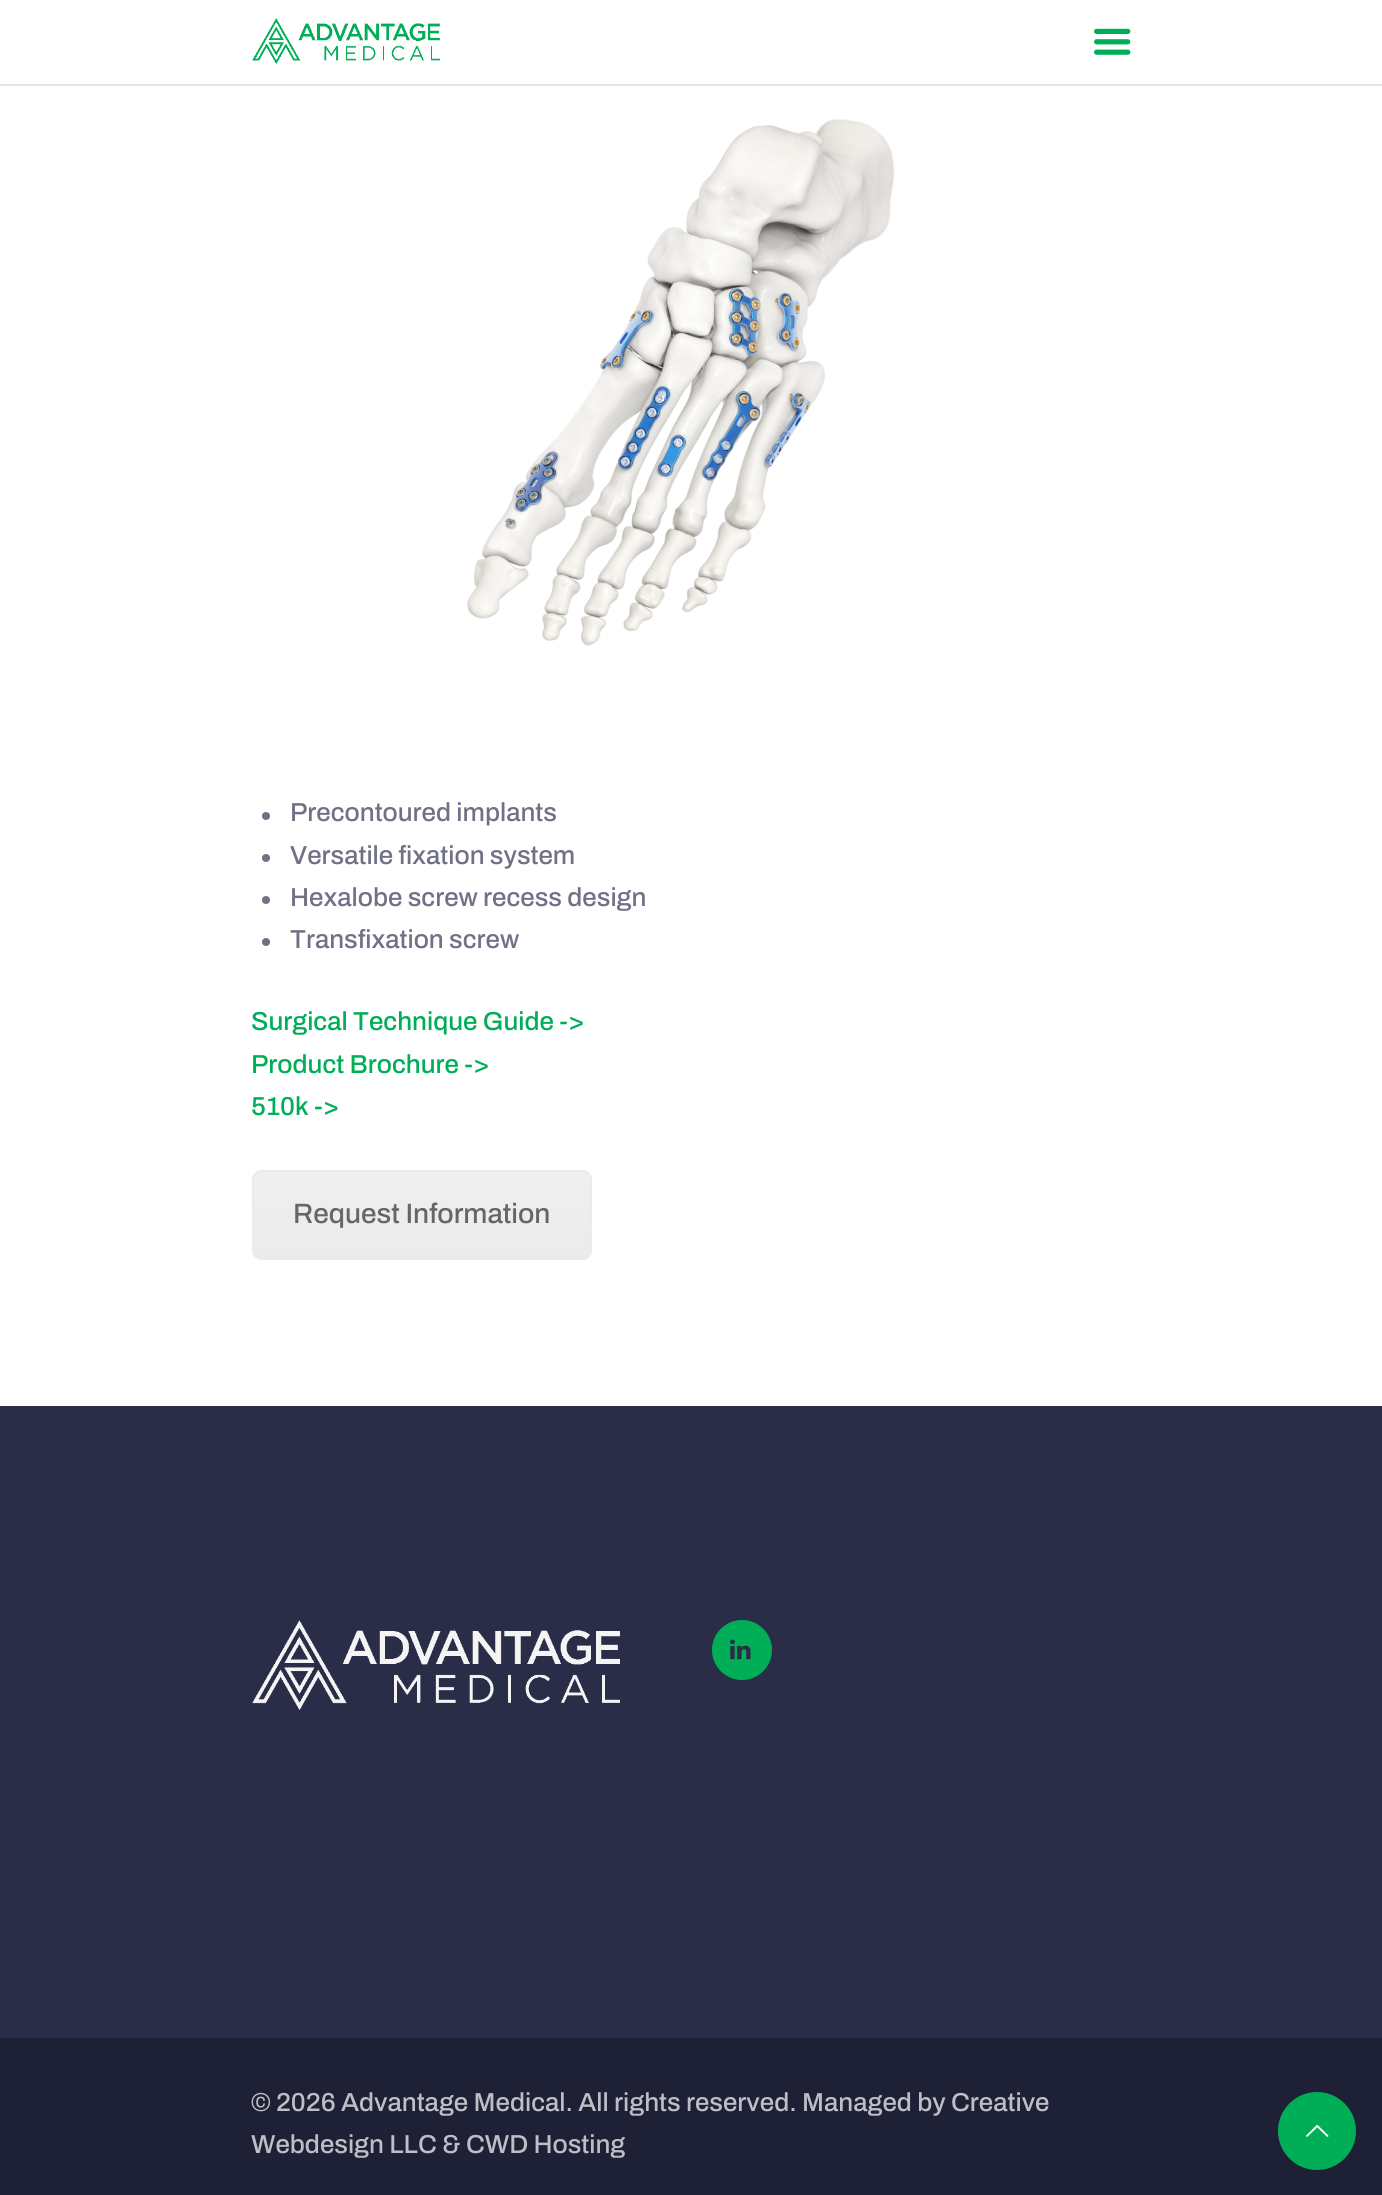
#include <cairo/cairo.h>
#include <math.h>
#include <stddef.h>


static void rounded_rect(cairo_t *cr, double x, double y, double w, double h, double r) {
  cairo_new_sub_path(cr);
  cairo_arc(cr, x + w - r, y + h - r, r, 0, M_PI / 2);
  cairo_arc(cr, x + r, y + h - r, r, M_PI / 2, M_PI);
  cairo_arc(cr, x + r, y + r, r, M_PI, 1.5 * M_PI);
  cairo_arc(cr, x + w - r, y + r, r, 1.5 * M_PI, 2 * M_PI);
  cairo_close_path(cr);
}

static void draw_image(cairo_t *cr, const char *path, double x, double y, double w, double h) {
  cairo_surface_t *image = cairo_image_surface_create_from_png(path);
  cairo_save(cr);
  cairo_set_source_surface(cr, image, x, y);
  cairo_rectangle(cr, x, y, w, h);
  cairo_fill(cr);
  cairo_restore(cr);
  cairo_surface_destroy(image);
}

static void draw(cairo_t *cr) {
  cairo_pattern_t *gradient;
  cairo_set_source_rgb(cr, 1, 1, 1);
  cairo_paint(cr);
  cairo_set_source_rgb(cr, 229 / 255.0, 229 / 255.0, 229 / 255.0);
  cairo_rectangle(cr, 0, 84, 1382, 2);
  cairo_fill(cr);
  draw_image(cr, "images/1.png", 252, 18, 188, 46);
  draw_image(cr, "images/2.png", 1094, 28, 37, 27);
  draw_image(cr, "images/3.png", 467, 119, 428, 527);
  cairo_set_source_rgb(cr, 112 / 255.0, 113 / 255.0, 134 / 255.0);
  cairo_arc(cr, 266, 816, 4, 0, 2 * M_PI);
  cairo_fill(cr);
  cairo_arc(cr, 266, 858, 4, 0, 2 * M_PI);
  cairo_fill(cr);
  cairo_arc(cr, 266, 900, 4, 0, 2 * M_PI);
  cairo_fill(cr);
  cairo_arc(cr, 266, 942, 4, 0, 2 * M_PI);
  cairo_fill(cr);
  cairo_set_source_rgb(cr, 235 / 255.0, 235 / 255.0, 235 / 255.0);
  rounded_rect(cr, 252, 1170, 340, 90, 10);
  cairo_fill(cr);
  cairo_save(cr);
  rounded_rect(cr, 252, 1170, 340, 90, 10);
  cairo_clip(cr);
  gradient = cairo_pattern_create_linear(422, 1172, 422, 1258);
  cairo_pattern_add_color_stop_rgba(gradient, 0, 1, 1, 1, 0.2);
  cairo_pattern_add_color_stop_rgba(gradient, 1, 1, 1, 1, 0.01);
  cairo_set_source(cr, gradient);
  cairo_pattern_destroy(gradient);
  cairo_rectangle(cr, 252, 1172, 340, 81);
  cairo_fill(cr);
  cairo_restore(cr);
  rounded_rect(cr, 253, 1171, 338, 88, 9);
  cairo_stroke(cr);
  cairo_set_source_rgb(cr, 42 / 255.0, 45 / 255.0, 72 / 255.0);
  cairo_rectangle(cr, 0, 1406, 1382, 632);
  cairo_fill(cr);
  draw_image(cr, "images/4.png", 252, 1620, 368, 90);
  cairo_set_source_rgb(cr, 0, 174 / 255.0, 87 / 255.0);
  cairo_arc(cr, 742, 1650, 30, 0, 2 * M_PI);
  cairo_fill(cr);
  draw_image(cr, "images/5.png", 730, 1639, 21, 21);
  cairo_set_source_rgb(cr, 30 / 255.0, 32 / 255.0, 53 / 255.0);
  cairo_rectangle(cr, 0, 2038, 1382, 157);
  cairo_fill(cr);
  cairo_set_source_rgb(cr, 0, 174 / 255.0, 87 / 255.0);
  cairo_arc(cr, 1317, 2131, 39, 0, 2 * M_PI);
  cairo_fill(cr);
  draw_image(cr, "images/6.png", 1306, 2124, 23, 13);
  cairo_select_font_face(cr, "Archivo Medium", CAIRO_FONT_SLANT_NORMAL, CAIRO_FONT_WEIGHT_NORMAL);
  cairo_set_font_size(cr, 26);
  cairo_set_source_rgb(cr, 112 / 255.0, 113 / 255.0, 134 / 255.0);
  cairo_move_to(cr, 290, 821);
  cairo_show_text(cr, "Precontoured implants");
  cairo_move_to(cr, 290, 864);
  cairo_show_text(cr, "Versatile fixation system");
  cairo_move_to(cr, 290, 906);
  cairo_show_text(cr, "Hexalobe screw recess design");
  cairo_move_to(cr, 290, 948);
  cairo_show_text(cr, "Transfixation screw");
  cairo_set_source_rgb(cr, 0, 174 / 255.0, 87 / 255.0);
  cairo_move_to(cr, 251, 1030);
  cairo_show_text(cr, "Surgical Technique Guide ->");
  cairo_move_to(cr, 251, 1073);
  cairo_show_text(cr, "Product Brochure ->");
  cairo_move_to(cr, 251, 1115);
  cairo_show_text(cr, "510k ->");
  cairo_set_font_size(cr, 28);
  cairo_set_source_rgb(cr, 102 / 255.0, 102 / 255.0, 102 / 255.0);
  cairo_move_to(cr, 293, 1223);
  cairo_show_text(cr, "Request Information");
  cairo_set_font_size(cr, 26);
  cairo_set_source_rgb(cr, 189 / 255.0, 190 / 255.0, 198 / 255.0);
  cairo_move_to(cr, 251, 2111);
  cairo_show_text(cr, "© 2026 Advantage Medical. All rights reserved. Managed by Creative");
  cairo_move_to(cr, 251, 2153);
  cairo_show_text(cr, "Webdesign LLC & CWD Hosting");
}

int main(void) {
  cairo_surface_t *surface = cairo_image_surface_create(CAIRO_FORMAT_RGB24, 1382, 2195);
  cairo_t *cr = cairo_create(surface);
  cairo_font_options_t *options = cairo_font_options_create();
  cairo_font_options_set_hint_metrics(options, CAIRO_HINT_METRICS_OFF);
  cairo_font_options_set_hint_style(options, CAIRO_HINT_STYLE_NONE);
  cairo_set_font_options(cr, options);
  cairo_set_miter_limit(cr, 4);
  draw(cr);
  cairo_surface_write_to_png(surface, "out.png");
  cairo_font_options_destroy(options);
  cairo_destroy(cr);
  cairo_surface_destroy(surface);
  return 0;
}
